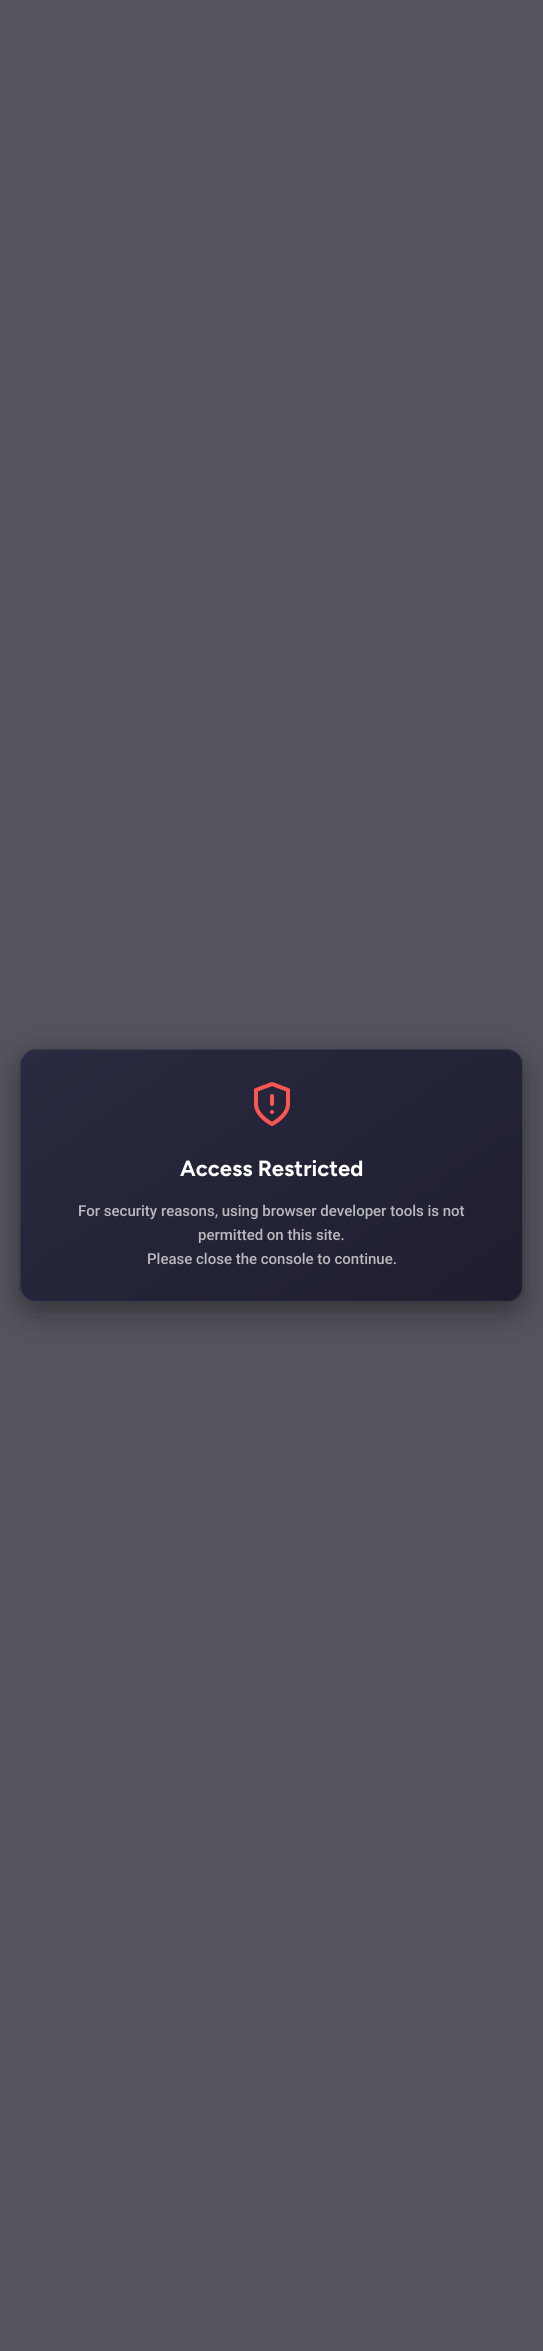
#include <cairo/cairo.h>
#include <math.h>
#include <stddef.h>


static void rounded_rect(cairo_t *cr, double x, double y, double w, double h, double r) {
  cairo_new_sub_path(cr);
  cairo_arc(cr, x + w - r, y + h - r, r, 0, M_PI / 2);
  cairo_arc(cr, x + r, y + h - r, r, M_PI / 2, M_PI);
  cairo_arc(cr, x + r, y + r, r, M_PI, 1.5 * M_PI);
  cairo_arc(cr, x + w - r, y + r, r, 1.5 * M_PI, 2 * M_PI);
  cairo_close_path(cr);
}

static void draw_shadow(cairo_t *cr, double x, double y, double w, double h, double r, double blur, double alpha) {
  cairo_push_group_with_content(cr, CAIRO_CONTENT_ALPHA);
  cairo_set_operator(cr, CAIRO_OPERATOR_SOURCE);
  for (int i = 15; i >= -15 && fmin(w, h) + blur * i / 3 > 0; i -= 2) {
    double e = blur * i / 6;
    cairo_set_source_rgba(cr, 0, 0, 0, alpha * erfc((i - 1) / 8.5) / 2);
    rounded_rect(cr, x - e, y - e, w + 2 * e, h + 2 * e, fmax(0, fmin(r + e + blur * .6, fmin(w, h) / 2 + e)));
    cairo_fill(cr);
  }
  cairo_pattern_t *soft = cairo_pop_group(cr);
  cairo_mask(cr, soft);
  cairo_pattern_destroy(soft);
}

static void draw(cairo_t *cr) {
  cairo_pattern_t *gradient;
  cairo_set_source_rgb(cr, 84 / 255.0, 84 / 255.0, 94 / 255.0);
  cairo_paint(cr);
  cairo_set_source_rgb(cr, 0, 0, 0);
  draw_shadow(cr, 20, 1059, 503, 253, 16, 15, 0.4);
  cairo_save(cr);
  rounded_rect(cr, 20, 1049, 503, 253, 16);
  cairo_clip(cr);
  gradient = cairo_pattern_create_linear(130, 723, 413, 1126);
  cairo_pattern_add_color_stop_rgba(gradient, 0, 42 / 255.0, 42 / 255.0, 64 / 255.0, 1);
  cairo_pattern_add_color_stop_rgba(gradient, 1, 30 / 255.0, 30 / 255.0, 47 / 255.0, 1);
  cairo_set_source(cr, gradient);
  cairo_pattern_destroy(gradient);
  cairo_rectangle(cr, 30, 1049, 483, 1);
  cairo_fill(cr);
  gradient = cairo_pattern_create_linear(-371, 974, -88, 1377);
  cairo_pattern_add_color_stop_rgba(gradient, 0, 42 / 255.0, 42 / 255.0, 64 / 255.0, 1);
  cairo_pattern_add_color_stop_rgba(gradient, 1, 30 / 255.0, 30 / 255.0, 47 / 255.0, 1);
  cairo_set_source(cr, gradient);
  cairo_pattern_destroy(gradient);
  cairo_rectangle(cr, 20, 1059, 1, 233);
  cairo_fill(cr);
  gradient = cairo_pattern_create_linear(130, 974, 413, 1377);
  cairo_pattern_add_color_stop_rgba(gradient, 0, 42 / 255.0, 42 / 255.0, 64 / 255.0, 1);
  cairo_pattern_add_color_stop_rgba(gradient, 1, 30 / 255.0, 30 / 255.0, 47 / 255.0, 1);
  cairo_set_source(cr, gradient);
  cairo_pattern_destroy(gradient);
  cairo_rectangle(cr, 21, 1050, 501, 251);
  cairo_fill(cr);
  gradient = cairo_pattern_create_linear(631, 974, 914, 1377);
  cairo_pattern_add_color_stop_rgba(gradient, 0, 42 / 255.0, 42 / 255.0, 64 / 255.0, 1);
  cairo_pattern_add_color_stop_rgba(gradient, 1, 30 / 255.0, 30 / 255.0, 47 / 255.0, 1);
  cairo_set_source(cr, gradient);
  cairo_pattern_destroy(gradient);
  cairo_rectangle(cr, 522, 1059, 1, 233);
  cairo_fill(cr);
  gradient = cairo_pattern_create_linear(130, 1225, 413, 1628);
  cairo_pattern_add_color_stop_rgba(gradient, 0, 42 / 255.0, 42 / 255.0, 64 / 255.0, 1);
  cairo_pattern_add_color_stop_rgba(gradient, 1, 30 / 255.0, 30 / 255.0, 47 / 255.0, 1);
  cairo_set_source(cr, gradient);
  cairo_pattern_destroy(gradient);
  cairo_rectangle(cr, 30, 1301, 483, 1);
  cairo_fill(cr);
  cairo_restore(cr);
  rounded_rect(cr, 20.5, 1049.5, 502, 252, 15.5);
  cairo_set_source_rgba(cr, 1, 1, 1, 0.1);
  cairo_set_line_width(cr, 1);
  cairo_stroke(cr);
  cairo_new_path(cr);
  cairo_move_to(cr, 272, 1124);
  cairo_curve_to(cr, 272, 1124, 288, 1116, 288, 1104);
  cairo_line_to(cr, 288, 1090);
  cairo_line_to(cr, 272, 1084);
  cairo_line_to(cr, 256, 1090);
  cairo_line_to(cr, 256, 1104);
  cairo_curve_to(cr, 256, 1116, 272, 1124, 272, 1124);
  cairo_close_path(cr);
  cairo_move_to(cr, 272, 1096);
  cairo_line_to(cr, 272, 1104);
  cairo_move_to(cr, 272, 1112);
  cairo_line_to(cr, 272, 1112);
  cairo_set_source_rgb(cr, 1, 85 / 255.0, 85 / 255.0);
  cairo_set_line_width(cr, 4);
  cairo_set_line_cap(cr, CAIRO_LINE_CAP_ROUND);
  cairo_set_line_join(cr, CAIRO_LINE_JOIN_ROUND);
  cairo_stroke(cr);
  cairo_select_font_face(cr, "Figtree", CAIRO_FONT_SLANT_NORMAL, CAIRO_FONT_WEIGHT_BOLD);
  cairo_set_font_size(cr, 22);
  cairo_set_source_rgb(cr, 1, 1, 1);
  cairo_move_to(cr, 180, 1176);
  cairo_show_text(cr, "Access Restricted");
  cairo_select_font_face(cr, "Roboto Medium", CAIRO_FONT_SLANT_NORMAL, CAIRO_FONT_WEIGHT_NORMAL);
  cairo_set_font_size(cr, 15);
  cairo_set_source_rgb(cr, 186 / 255.0, 186 / 255.0, 190 / 255.0);
  cairo_move_to(cr, 78, 1216);
  cairo_show_text(cr, "For security reasons, using browser developer tools is not");
  cairo_move_to(cr, 198, 1240);
  cairo_show_text(cr, "permitted on this site.");
  cairo_move_to(cr, 147, 1264);
  cairo_show_text(cr, "Please close the console to continue.");
}

int main(void) {
  cairo_surface_t *surface = cairo_image_surface_create(CAIRO_FORMAT_RGB24, 543, 2351);
  cairo_t *cr = cairo_create(surface);
  cairo_font_options_t *options = cairo_font_options_create();
  cairo_font_options_set_hint_metrics(options, CAIRO_HINT_METRICS_OFF);
  cairo_font_options_set_hint_style(options, CAIRO_HINT_STYLE_NONE);
  cairo_set_font_options(cr, options);
  cairo_set_miter_limit(cr, 4);
  draw(cr);
  cairo_surface_write_to_png(surface, "out.png");
  cairo_font_options_destroy(options);
  cairo_destroy(cr);
  cairo_surface_destroy(surface);
  return 0;
}
